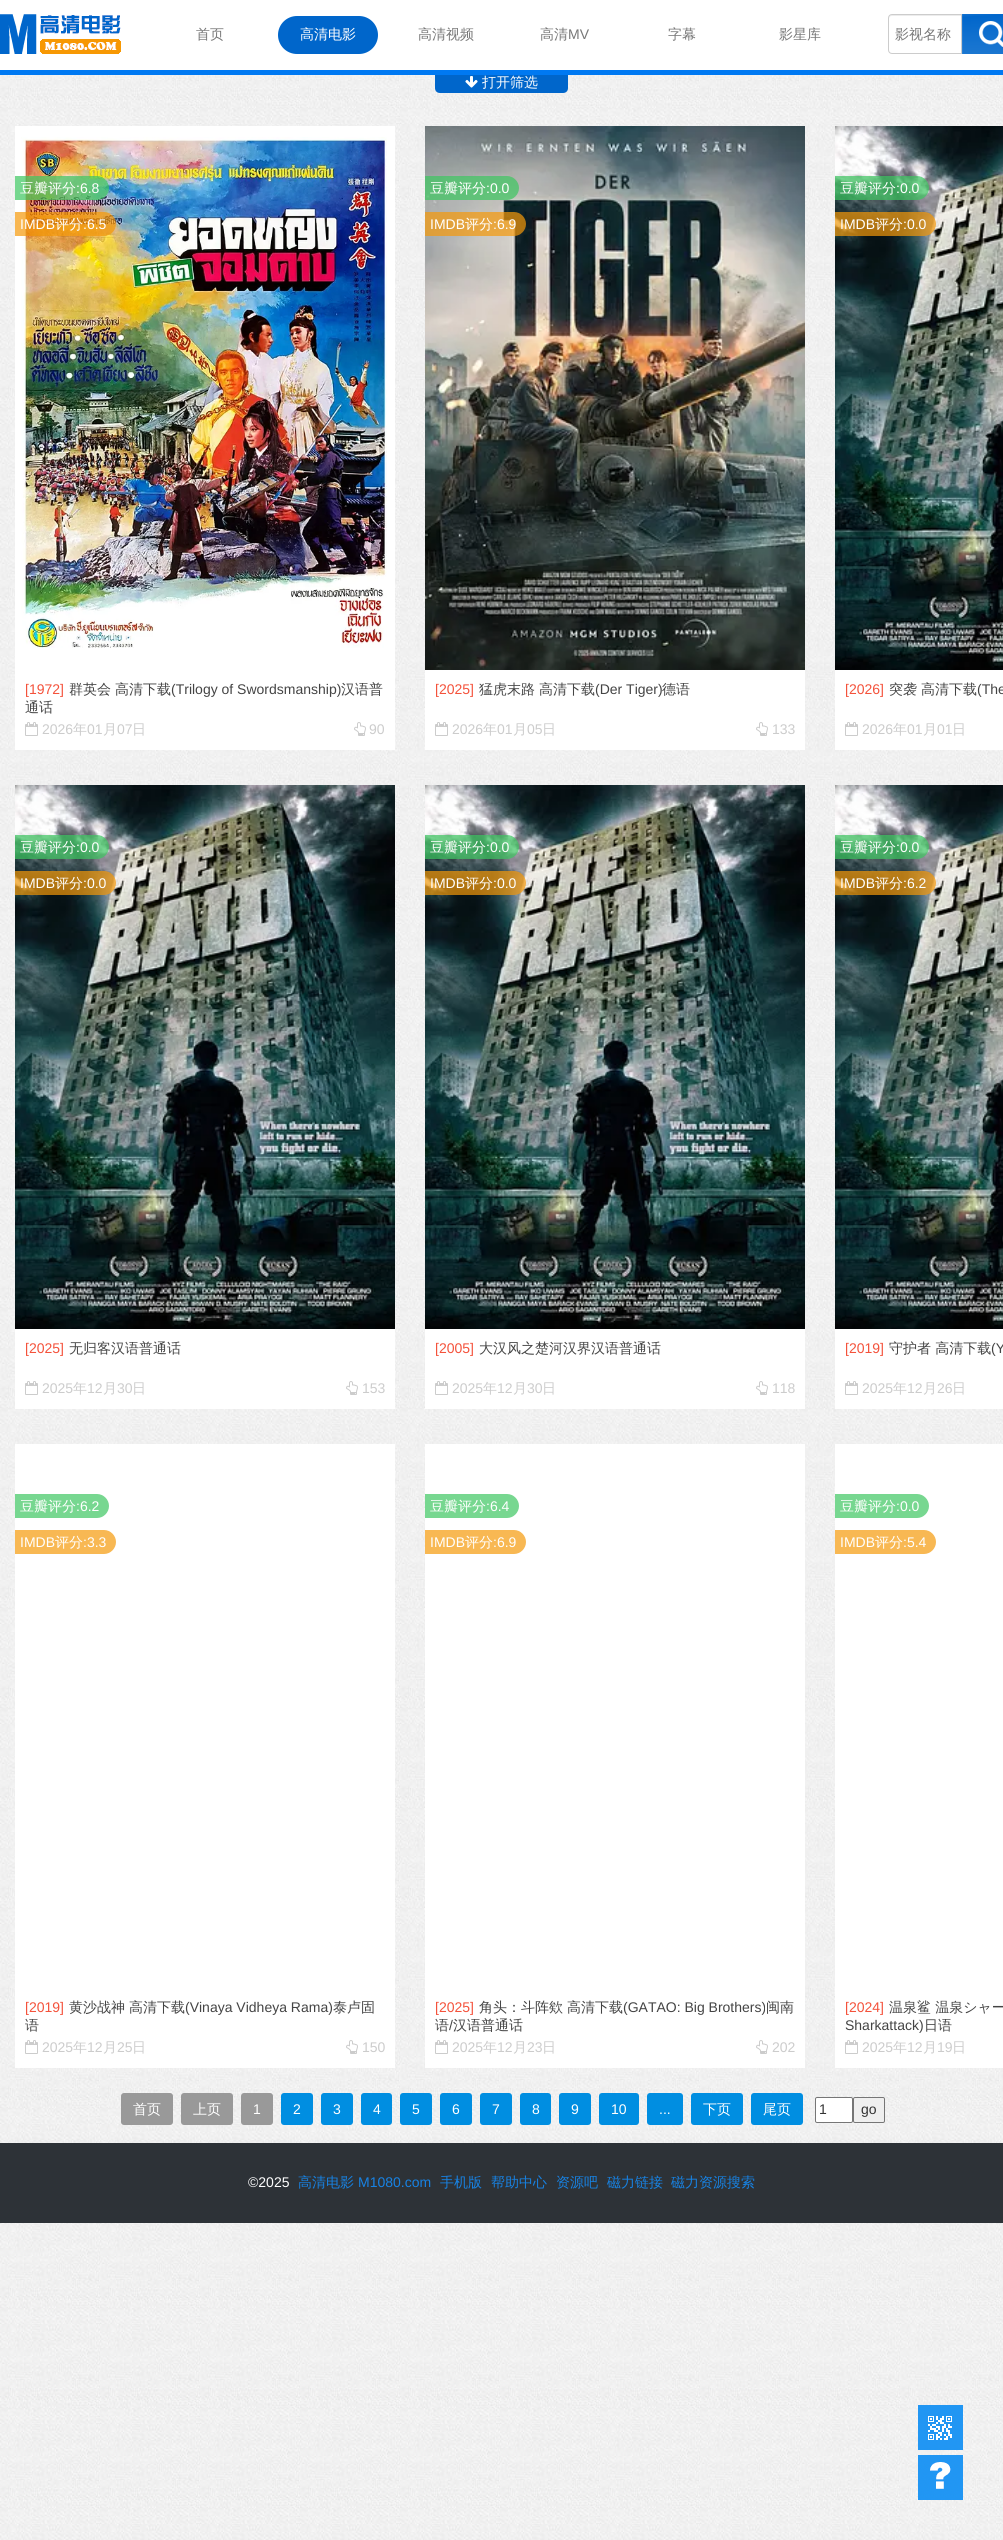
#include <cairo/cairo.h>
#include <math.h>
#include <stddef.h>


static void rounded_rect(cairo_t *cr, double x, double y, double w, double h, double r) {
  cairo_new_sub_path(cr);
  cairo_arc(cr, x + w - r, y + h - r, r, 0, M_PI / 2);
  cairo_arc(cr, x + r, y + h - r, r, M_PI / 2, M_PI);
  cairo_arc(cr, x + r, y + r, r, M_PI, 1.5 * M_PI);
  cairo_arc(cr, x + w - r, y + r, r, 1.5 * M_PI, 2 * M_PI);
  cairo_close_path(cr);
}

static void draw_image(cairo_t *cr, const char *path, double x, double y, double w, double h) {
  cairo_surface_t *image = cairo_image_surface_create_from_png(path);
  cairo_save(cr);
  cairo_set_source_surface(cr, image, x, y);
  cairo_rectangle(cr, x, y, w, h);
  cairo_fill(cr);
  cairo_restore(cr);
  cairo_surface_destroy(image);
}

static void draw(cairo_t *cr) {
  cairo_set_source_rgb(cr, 1, 1, 1);
  cairo_paint(cr);
  draw_image(cr, "images/1.png", 0, 75, 1003, 2465);
  cairo_set_source_rgb(cr, 0, 102 / 255.0, 203 / 255.0);
  cairo_new_path(cr);
  cairo_move_to(cr, 435, 71);
  cairo_line_to(cr, 568, 71);
  cairo_line_to(cr, 568, 88);
  cairo_curve_to(cr, 568, 91, 566, 93, 563, 93);
  cairo_line_to(cr, 440, 93);
  cairo_curve_to(cr, 437, 93, 435, 91, 435, 88);
  cairo_close_path(cr);
  cairo_fill(cr);
  cairo_set_source_rgb(cr, 0, 121 / 255.0, 242 / 255.0);
  cairo_rectangle(cr, 0, 70, 1003, 5);
  cairo_fill(cr);
  draw_image(cr, "images/2.png", 0, 14, 121, 40);
  cairo_set_source_rgb(cr, 0, 102 / 255.0, 203 / 255.0);
  rounded_rect(cr, 278, 16, 100, 38, 19);
  cairo_fill(cr);
  cairo_set_source_rgb(cr, 236 / 255.0, 236 / 255.0, 236 / 255.0);
  cairo_new_path(cr);
  cairo_move_to(cr, 892, 16);
  cairo_line_to(cr, 961, 16);
  cairo_line_to(cr, 961, 15);
  cairo_line_to(cr, 892, 15);
  cairo_curve_to(cr, 890, 15, 889, 16, 889, 18);
  cairo_line_to(cr, 889, 19);
  cairo_curve_to(cr, 889, 17, 890, 16, 892, 16);
  cairo_close_path(cr);
  cairo_fill(cr);
  cairo_new_path(cr);
  cairo_move_to(cr, 892, 14.5);
  cairo_line_to(cr, 961.5, 14.5);
  cairo_line_to(cr, 961.5, 53.5);
  cairo_line_to(cr, 892, 53.5);
  cairo_curve_to(cr, 890, 53.5, 888.5, 52, 888.5, 50);
  cairo_line_to(cr, 888.5, 18);
  cairo_curve_to(cr, 888.5, 16, 890, 14.5, 892, 14.5);
  cairo_close_path(cr);
  cairo_set_source_rgb(cr, 204 / 255.0, 204 / 255.0, 204 / 255.0);
  cairo_set_line_width(cr, 1);
  cairo_stroke(cr);
  draw_image(cr, "images/3.png", 962, 14, 41, 40);
  draw_image(cr, "images/4.png", 465, 76, 13, 12);
  cairo_set_source_rgb(cr, 1, 1, 1);
  cairo_rectangle(cr, 15, 126, 380, 624);
  cairo_fill(cr);
  draw_image(cr, "images/5.png", 21, 137, 366, 511);
  cairo_set_source_rgba(cr, 60 / 255.0, 198 / 255.0, 96 / 255.0, 0.7);
  cairo_new_path(cr);
  cairo_move_to(cr, 15, 176);
  cairo_line_to(cr, 97, 176);
  cairo_curve_to(cr, 103.5, 176, 109, 181.5, 109, 188);
  cairo_curve_to(cr, 109, 194.5, 103.5, 200, 97, 200);
  cairo_line_to(cr, 15, 200);
  cairo_close_path(cr);
  cairo_fill(cr);
  cairo_set_source_rgba(cr, 245 / 255.0, 153 / 255.0, 9 / 255.0, 0.7);
  cairo_new_path(cr);
  cairo_move_to(cr, 15, 212);
  cairo_line_to(cr, 104, 212);
  cairo_curve_to(cr, 110.5, 212, 116, 217.5, 116, 224);
  cairo_curve_to(cr, 116, 230.5, 110.5, 236, 104, 236);
  cairo_line_to(cr, 15, 236);
  cairo_close_path(cr);
  cairo_fill(cr);
  draw_image(cr, "images/6.png", 25, 722, 13, 14);
  draw_image(cr, "images/7.png", 354, 722, 12, 14);
  cairo_set_source_rgb(cr, 1, 1, 1);
  cairo_rectangle(cr, 425, 670, 380, 80);
  cairo_fill(cr);
  draw_image(cr, "images/8.png", 425, 126, 380, 544);
  cairo_set_source_rgba(cr, 60 / 255.0, 198 / 255.0, 96 / 255.0, 0.7);
  cairo_new_path(cr);
  cairo_move_to(cr, 425, 176);
  cairo_line_to(cr, 507, 176);
  cairo_curve_to(cr, 513.5, 176, 519, 181.5, 519, 188);
  cairo_curve_to(cr, 519, 194.5, 513.5, 200, 507, 200);
  cairo_line_to(cr, 425, 200);
  cairo_close_path(cr);
  cairo_fill(cr);
  cairo_set_source_rgba(cr, 245 / 255.0, 153 / 255.0, 9 / 255.0, 0.7);
  cairo_new_path(cr);
  cairo_move_to(cr, 425, 212);
  cairo_line_to(cr, 514, 212);
  cairo_curve_to(cr, 520.5, 212, 526, 217.5, 526, 224);
  cairo_curve_to(cr, 526, 230.5, 520.5, 236, 514, 236);
  cairo_line_to(cr, 425, 236);
  cairo_close_path(cr);
  cairo_fill(cr);
  draw_image(cr, "images/6.png", 435, 722, 13, 14);
  draw_image(cr, "images/7.png", 756, 722, 12, 14);
  cairo_set_source_rgb(cr, 1, 1, 1);
  cairo_rectangle(cr, 835, 670, 168, 80);
  cairo_fill(cr);
  draw_image(cr, "images/9.png", 835, 126, 168, 544);
  cairo_set_source_rgba(cr, 60 / 255.0, 198 / 255.0, 96 / 255.0, 0.7);
  cairo_new_path(cr);
  cairo_move_to(cr, 835, 176);
  cairo_line_to(cr, 917, 176);
  cairo_curve_to(cr, 923.5, 176, 929, 181.5, 929, 188);
  cairo_curve_to(cr, 929, 194.5, 923.5, 200, 917, 200);
  cairo_line_to(cr, 835, 200);
  cairo_close_path(cr);
  cairo_fill(cr);
  cairo_set_source_rgba(cr, 245 / 255.0, 153 / 255.0, 9 / 255.0, 0.7);
  cairo_new_path(cr);
  cairo_move_to(cr, 835, 212);
  cairo_line_to(cr, 924, 212);
  cairo_curve_to(cr, 930.5, 212, 936, 217.5, 936, 224);
  cairo_curve_to(cr, 936, 230.5, 930.5, 236, 924, 236);
  cairo_line_to(cr, 835, 236);
  cairo_close_path(cr);
  cairo_fill(cr);
  draw_image(cr, "images/6.png", 845, 722, 13, 14);
  cairo_set_source_rgb(cr, 1, 1, 1);
  cairo_rectangle(cr, 15, 1329, 380, 80);
  cairo_fill(cr);
  draw_image(cr, "images/10.png", 15, 785, 380, 544);
  cairo_set_source_rgba(cr, 60 / 255.0, 198 / 255.0, 96 / 255.0, 0.7);
  cairo_new_path(cr);
  cairo_move_to(cr, 15, 835);
  cairo_line_to(cr, 97, 835);
  cairo_curve_to(cr, 103.5, 835, 109, 840.5, 109, 847);
  cairo_curve_to(cr, 109, 853.5, 103.5, 859, 97, 859);
  cairo_line_to(cr, 15, 859);
  cairo_close_path(cr);
  cairo_fill(cr);
  cairo_set_source_rgba(cr, 245 / 255.0, 153 / 255.0, 9 / 255.0, 0.7);
  cairo_new_path(cr);
  cairo_move_to(cr, 15, 871);
  cairo_line_to(cr, 104, 871);
  cairo_curve_to(cr, 110.5, 871, 116, 876.5, 116, 883);
  cairo_curve_to(cr, 116, 889.5, 110.5, 895, 104, 895);
  cairo_line_to(cr, 15, 895);
  cairo_close_path(cr);
  cairo_fill(cr);
  draw_image(cr, "images/6.png", 25, 1381, 13, 14);
  draw_image(cr, "images/7.png", 346, 1381, 12, 14);
  cairo_set_source_rgb(cr, 1, 1, 1);
  cairo_rectangle(cr, 425, 1329, 380, 80);
  cairo_fill(cr);
  draw_image(cr, "images/11.png", 425, 785, 380, 544);
  cairo_set_source_rgba(cr, 60 / 255.0, 198 / 255.0, 96 / 255.0, 0.7);
  cairo_new_path(cr);
  cairo_move_to(cr, 425, 835);
  cairo_line_to(cr, 507, 835);
  cairo_curve_to(cr, 513.5, 835, 519, 840.5, 519, 847);
  cairo_curve_to(cr, 519, 853.5, 513.5, 859, 507, 859);
  cairo_line_to(cr, 425, 859);
  cairo_close_path(cr);
  cairo_fill(cr);
  cairo_set_source_rgba(cr, 245 / 255.0, 153 / 255.0, 9 / 255.0, 0.7);
  cairo_new_path(cr);
  cairo_move_to(cr, 425, 871);
  cairo_line_to(cr, 514, 871);
  cairo_curve_to(cr, 520.5, 871, 526, 876.5, 526, 883);
  cairo_curve_to(cr, 526, 889.5, 520.5, 895, 514, 895);
  cairo_line_to(cr, 425, 895);
  cairo_close_path(cr);
  cairo_fill(cr);
  draw_image(cr, "images/6.png", 435, 1381, 13, 14);
  draw_image(cr, "images/7.png", 756, 1381, 12, 14);
  cairo_set_source_rgb(cr, 1, 1, 1);
  cairo_rectangle(cr, 835, 1329, 168, 80);
  cairo_fill(cr);
  draw_image(cr, "images/9.png", 835, 785, 168, 544);
  cairo_set_source_rgba(cr, 60 / 255.0, 198 / 255.0, 96 / 255.0, 0.7);
  cairo_new_path(cr);
  cairo_move_to(cr, 835, 835);
  cairo_line_to(cr, 917, 835);
  cairo_curve_to(cr, 923.5, 835, 929, 840.5, 929, 847);
  cairo_curve_to(cr, 929, 853.5, 923.5, 859, 917, 859);
  cairo_line_to(cr, 835, 859);
  cairo_close_path(cr);
  cairo_fill(cr);
  cairo_set_source_rgba(cr, 245 / 255.0, 153 / 255.0, 9 / 255.0, 0.7);
  cairo_new_path(cr);
  cairo_move_to(cr, 835, 871);
  cairo_line_to(cr, 924, 871);
  cairo_curve_to(cr, 930.5, 871, 936, 876.5, 936, 883);
  cairo_curve_to(cr, 936, 889.5, 930.5, 895, 924, 895);
  cairo_line_to(cr, 835, 895);
  cairo_close_path(cr);
  cairo_fill(cr);
  draw_image(cr, "images/6.png", 845, 1381, 13, 14);
  cairo_set_source_rgb(cr, 1, 1, 1);
  cairo_rectangle(cr, 15, 1444, 380, 624);
  cairo_fill(cr);
  cairo_set_source_rgb(cr, 119 / 255.0, 215 / 255.0, 144 / 255.0);
  cairo_new_path(cr);
  cairo_move_to(cr, 15, 1494);
  cairo_line_to(cr, 97, 1494);
  cairo_curve_to(cr, 103.5, 1494, 109, 1499.5, 109, 1506);
  cairo_curve_to(cr, 109, 1512.5, 103.5, 1518, 97, 1518);
  cairo_line_to(cr, 15, 1518);
  cairo_close_path(cr);
  cairo_fill(cr);
  cairo_set_source_rgb(cr, 248 / 255.0, 184 / 255.0, 83 / 255.0);
  cairo_new_path(cr);
  cairo_move_to(cr, 15, 1530);
  cairo_line_to(cr, 104, 1530);
  cairo_curve_to(cr, 110.5, 1530, 116, 1535.5, 116, 1542);
  cairo_curve_to(cr, 116, 1548.5, 110.5, 1554, 104, 1554);
  cairo_line_to(cr, 15, 1554);
  cairo_close_path(cr);
  cairo_fill(cr);
  draw_image(cr, "images/6.png", 25, 2040, 13, 14);
  draw_image(cr, "images/7.png", 346, 2040, 12, 14);
  cairo_set_source_rgb(cr, 1, 1, 1);
  cairo_rectangle(cr, 425, 1444, 380, 624);
  cairo_fill(cr);
  cairo_set_source_rgb(cr, 119 / 255.0, 215 / 255.0, 144 / 255.0);
  cairo_new_path(cr);
  cairo_move_to(cr, 425, 1494);
  cairo_line_to(cr, 507, 1494);
  cairo_curve_to(cr, 513.5, 1494, 519, 1499.5, 519, 1506);
  cairo_curve_to(cr, 519, 1512.5, 513.5, 1518, 507, 1518);
  cairo_line_to(cr, 425, 1518);
  cairo_close_path(cr);
  cairo_fill(cr);
  cairo_set_source_rgb(cr, 248 / 255.0, 184 / 255.0, 83 / 255.0);
  cairo_new_path(cr);
  cairo_move_to(cr, 425, 1530);
  cairo_line_to(cr, 514, 1530);
  cairo_curve_to(cr, 520.5, 1530, 526, 1535.5, 526, 1542);
  cairo_curve_to(cr, 526, 1548.5, 520.5, 1554, 514, 1554);
  cairo_line_to(cr, 425, 1554);
  cairo_close_path(cr);
  cairo_fill(cr);
  draw_image(cr, "images/6.png", 435, 2040, 13, 14);
  draw_image(cr, "images/7.png", 756, 2040, 12, 14);
  cairo_set_source_rgb(cr, 1, 1, 1);
  cairo_rectangle(cr, 835, 1444, 168, 624);
  cairo_fill(cr);
  cairo_set_source_rgb(cr, 119 / 255.0, 215 / 255.0, 144 / 255.0);
  cairo_new_path(cr);
  cairo_move_to(cr, 835, 1494);
  cairo_line_to(cr, 917, 1494);
  cairo_curve_to(cr, 923.5, 1494, 929, 1499.5, 929, 1506);
  cairo_curve_to(cr, 929, 1512.5, 923.5, 1518, 917, 1518);
  cairo_line_to(cr, 835, 1518);
  cairo_close_path(cr);
  cairo_fill(cr);
  cairo_set_source_rgb(cr, 248 / 255.0, 184 / 255.0, 83 / 255.0);
  cairo_new_path(cr);
  cairo_move_to(cr, 835, 1530);
  cairo_line_to(cr, 924, 1530);
  cairo_curve_to(cr, 930.5, 1530, 936, 1535.5, 936, 1542);
  cairo_curve_to(cr, 936, 1548.5, 930.5, 1554, 924, 1554);
  cairo_line_to(cr, 835, 1554);
  cairo_close_path(cr);
  cairo_fill(cr);
  draw_image(cr, "images/6.png", 845, 2040, 13, 14);
  cairo_set_source_rgb(cr, 153 / 255.0, 153 / 255.0, 153 / 255.0);
  rounded_rect(cr, 121, 2093, 52, 32, 3);
  cairo_fill(cr);
  rounded_rect(cr, 181, 2093, 52, 32, 3);
  cairo_fill(cr);
  rounded_rect(cr, 241, 2093, 32, 32, 3);
  cairo_fill(cr);
  cairo_set_source_rgb(cr, 0, 142 / 255.0, 225 / 255.0);
  rounded_rect(cr, 281, 2093, 32, 32, 3);
  cairo_fill(cr);
  rounded_rect(cr, 321, 2093, 32, 32, 3);
  cairo_fill(cr);
  rounded_rect(cr, 361, 2093, 31, 32, 3);
  cairo_fill(cr);
  rounded_rect(cr, 400, 2093, 32, 32, 3);
  cairo_fill(cr);
  rounded_rect(cr, 440, 2093, 32, 32, 3);
  cairo_fill(cr);
  rounded_rect(cr, 480, 2093, 32, 32, 3);
  cairo_fill(cr);
  rounded_rect(cr, 520, 2093, 31, 32, 3);
  cairo_fill(cr);
  rounded_rect(cr, 559, 2093, 32, 32, 3);
  cairo_fill(cr);
  rounded_rect(cr, 599, 2093, 40, 32, 3);
  cairo_fill(cr);
  rounded_rect(cr, 647, 2093, 36, 32, 3);
  cairo_fill(cr);
  rounded_rect(cr, 691, 2093, 52, 32, 3);
  cairo_fill(cr);
  rounded_rect(cr, 751, 2093, 52, 32, 3);
  cairo_fill(cr);
  cairo_set_source_rgb(cr, 1, 1, 1);
  rounded_rect(cr, 815.5, 2097.5, 37, 25, 1.5);
  cairo_fill_preserve(cr);
  cairo_set_source_rgb(cr, 118 / 255.0, 118 / 255.0, 118 / 255.0);
  cairo_stroke(cr);
  cairo_set_source_rgb(cr, 239 / 255.0, 239 / 255.0, 239 / 255.0);
  rounded_rect(cr, 853.5, 2097.5, 31, 25, 1.5);
  cairo_fill_preserve(cr);
  cairo_set_source_rgb(cr, 118 / 255.0, 118 / 255.0, 118 / 255.0);
  cairo_stroke(cr);
  cairo_set_source_rgb(cr, 45 / 255.0, 50 / 255.0, 55 / 255.0);
  cairo_rectangle(cr, 0, 2143, 1003, 80);
  cairo_fill(cr);
  draw_image(cr, "images/12.png", 918, 2405, 45, 45);
  draw_image(cr, "images/13.png", 918, 2455, 45, 45);
  cairo_select_font_face(cr, "WenQuanYi Zen Hei Medium", CAIRO_FONT_SLANT_NORMAL, CAIRO_FONT_WEIGHT_NORMAL);
  cairo_set_font_size(cr, 14);
  cairo_set_source_rgb(cr, 119 / 255.0, 119 / 255.0, 119 / 255.0);
  cairo_move_to(cr, 196, 39);
  cairo_show_text(cr, "首页");
  cairo_set_source_rgb(cr, 1, 1, 1);
  cairo_move_to(cr, 300, 39);
  cairo_show_text(cr, "高清电影");
  cairo_set_source_rgb(cr, 119 / 255.0, 119 / 255.0, 119 / 255.0);
  cairo_move_to(cr, 418, 39);
  cairo_show_text(cr, "高清视频");
  cairo_move_to(cr, 540, 39);
  cairo_show_text(cr, "高清");
  cairo_select_font_face(cr, "Liberation Sans", CAIRO_FONT_SLANT_NORMAL, CAIRO_FONT_WEIGHT_NORMAL);
  cairo_move_to(cr, 568, 39);
  cairo_show_text(cr, "MV");
  cairo_select_font_face(cr, "WenQuanYi Zen Hei Medium", CAIRO_FONT_SLANT_NORMAL, CAIRO_FONT_WEIGHT_NORMAL);
  cairo_move_to(cr, 668, 39);
  cairo_show_text(cr, "字幕");
  cairo_move_to(cr, 779, 39);
  cairo_show_text(cr, "影星库");
  cairo_move_to(cr, 895, 39);
  cairo_show_text(cr, "影视名称");
  cairo_set_source_rgb(cr, 1, 1, 1);
  cairo_move_to(cr, 482, 87);
  cairo_show_text(cr, "打开筛选");
  cairo_move_to(cr, 20, 193);
  cairo_show_text(cr, "豆瓣评分");
  cairo_select_font_face(cr, "Liberation Sans", CAIRO_FONT_SLANT_NORMAL, CAIRO_FONT_WEIGHT_NORMAL);
  cairo_move_to(cr, 76, 193);
  cairo_show_text(cr, ":6.8");
  cairo_move_to(cr, 20, 229);
  cairo_show_text(cr, "IMDB");
  cairo_select_font_face(cr, "WenQuanYi Zen Hei Medium", CAIRO_FONT_SLANT_NORMAL, CAIRO_FONT_WEIGHT_NORMAL);
  cairo_move_to(cr, 55, 229);
  cairo_show_text(cr, "评分");
  cairo_select_font_face(cr, "Liberation Sans", CAIRO_FONT_SLANT_NORMAL, CAIRO_FONT_WEIGHT_NORMAL);
  cairo_move_to(cr, 83, 229);
  cairo_show_text(cr, ":6.5");
  cairo_set_source_rgb(cr, 244 / 255.0, 82 / 255.0, 59 / 255.0);
  cairo_move_to(cr, 25, 694);
  cairo_show_text(cr, "[1972]");
  cairo_select_font_face(cr, "WenQuanYi Zen Hei Medium", CAIRO_FONT_SLANT_NORMAL, CAIRO_FONT_WEIGHT_NORMAL);
  cairo_set_source_rgb(cr, 68 / 255.0, 68 / 255.0, 68 / 255.0);
  cairo_move_to(cr, 69, 694);
  cairo_show_text(cr, "群英会");
  cairo_move_to(cr, 115, 694);
  cairo_show_text(cr, "高清下载");
  cairo_select_font_face(cr, "Liberation Sans", CAIRO_FONT_SLANT_NORMAL, CAIRO_FONT_WEIGHT_NORMAL);
  cairo_move_to(cr, 171, 694);
  cairo_show_text(cr, "(Trilogy of Swordsmanship)");
  cairo_select_font_face(cr, "WenQuanYi Zen Hei Medium", CAIRO_FONT_SLANT_NORMAL, CAIRO_FONT_WEIGHT_NORMAL);
  cairo_move_to(cr, 341, 694);
  cairo_show_text(cr, "汉语普");
  cairo_move_to(cr, 25, 712);
  cairo_show_text(cr, "通话");
  cairo_select_font_face(cr, "Liberation Sans", CAIRO_FONT_SLANT_NORMAL, CAIRO_FONT_WEIGHT_NORMAL);
  cairo_set_source_rgb(cr, 204 / 255.0, 204 / 255.0, 204 / 255.0);
  cairo_move_to(cr, 42, 734);
  cairo_show_text(cr, "2026");
  cairo_select_font_face(cr, "WenQuanYi Zen Hei Medium", CAIRO_FONT_SLANT_NORMAL, CAIRO_FONT_WEIGHT_NORMAL);
  cairo_move_to(cr, 73, 734);
  cairo_show_text(cr, "年");
  cairo_select_font_face(cr, "Liberation Sans", CAIRO_FONT_SLANT_NORMAL, CAIRO_FONT_WEIGHT_NORMAL);
  cairo_move_to(cr, 87, 734);
  cairo_show_text(cr, "01");
  cairo_select_font_face(cr, "WenQuanYi Zen Hei Medium", CAIRO_FONT_SLANT_NORMAL, CAIRO_FONT_WEIGHT_NORMAL);
  cairo_move_to(cr, 103, 734);
  cairo_show_text(cr, "月");
  cairo_select_font_face(cr, "Liberation Sans", CAIRO_FONT_SLANT_NORMAL, CAIRO_FONT_WEIGHT_NORMAL);
  cairo_move_to(cr, 117, 734);
  cairo_show_text(cr, "07");
  cairo_select_font_face(cr, "WenQuanYi Zen Hei Medium", CAIRO_FONT_SLANT_NORMAL, CAIRO_FONT_WEIGHT_NORMAL);
  cairo_move_to(cr, 132, 734);
  cairo_show_text(cr, "日");
  cairo_select_font_face(cr, "Liberation Sans", CAIRO_FONT_SLANT_NORMAL, CAIRO_FONT_WEIGHT_NORMAL);
  cairo_move_to(cr, 369, 734);
  cairo_show_text(cr, "90");
  cairo_select_font_face(cr, "WenQuanYi Zen Hei Medium", CAIRO_FONT_SLANT_NORMAL, CAIRO_FONT_WEIGHT_NORMAL);
  cairo_set_source_rgb(cr, 1, 1, 1);
  cairo_move_to(cr, 430, 193);
  cairo_show_text(cr, "豆瓣评分");
  cairo_select_font_face(cr, "Liberation Sans", CAIRO_FONT_SLANT_NORMAL, CAIRO_FONT_WEIGHT_NORMAL);
  cairo_move_to(cr, 486, 193);
  cairo_show_text(cr, ":0.0");
  cairo_move_to(cr, 430, 229);
  cairo_show_text(cr, "IMDB");
  cairo_select_font_face(cr, "WenQuanYi Zen Hei Medium", CAIRO_FONT_SLANT_NORMAL, CAIRO_FONT_WEIGHT_NORMAL);
  cairo_move_to(cr, 465, 229);
  cairo_show_text(cr, "评分");
  cairo_select_font_face(cr, "Liberation Sans", CAIRO_FONT_SLANT_NORMAL, CAIRO_FONT_WEIGHT_NORMAL);
  cairo_move_to(cr, 493, 229);
  cairo_show_text(cr, ":6.9");
  cairo_set_source_rgb(cr, 244 / 255.0, 82 / 255.0, 59 / 255.0);
  cairo_move_to(cr, 435, 694);
  cairo_show_text(cr, "[2025]");
  cairo_select_font_face(cr, "WenQuanYi Zen Hei Medium", CAIRO_FONT_SLANT_NORMAL, CAIRO_FONT_WEIGHT_NORMAL);
  cairo_set_source_rgb(cr, 68 / 255.0, 68 / 255.0, 68 / 255.0);
  cairo_move_to(cr, 479, 694);
  cairo_show_text(cr, "猛虎末路");
  cairo_move_to(cr, 539, 694);
  cairo_show_text(cr, "高清下载");
  cairo_select_font_face(cr, "Liberation Sans", CAIRO_FONT_SLANT_NORMAL, CAIRO_FONT_WEIGHT_NORMAL);
  cairo_move_to(cr, 595, 694);
  cairo_show_text(cr, "(Der Tiger)");
  cairo_select_font_face(cr, "WenQuanYi Zen Hei Medium", CAIRO_FONT_SLANT_NORMAL, CAIRO_FONT_WEIGHT_NORMAL);
  cairo_move_to(cr, 662, 694);
  cairo_show_text(cr, "德语");
  cairo_select_font_face(cr, "Liberation Sans", CAIRO_FONT_SLANT_NORMAL, CAIRO_FONT_WEIGHT_NORMAL);
  cairo_set_source_rgb(cr, 204 / 255.0, 204 / 255.0, 204 / 255.0);
  cairo_move_to(cr, 452, 734);
  cairo_show_text(cr, "2026");
  cairo_select_font_face(cr, "WenQuanYi Zen Hei Medium", CAIRO_FONT_SLANT_NORMAL, CAIRO_FONT_WEIGHT_NORMAL);
  cairo_move_to(cr, 483, 734);
  cairo_show_text(cr, "年");
  cairo_select_font_face(cr, "Liberation Sans", CAIRO_FONT_SLANT_NORMAL, CAIRO_FONT_WEIGHT_NORMAL);
  cairo_move_to(cr, 497, 734);
  cairo_show_text(cr, "01");
  cairo_select_font_face(cr, "WenQuanYi Zen Hei Medium", CAIRO_FONT_SLANT_NORMAL, CAIRO_FONT_WEIGHT_NORMAL);
  cairo_move_to(cr, 513, 734);
  cairo_show_text(cr, "月");
  cairo_select_font_face(cr, "Liberation Sans", CAIRO_FONT_SLANT_NORMAL, CAIRO_FONT_WEIGHT_NORMAL);
  cairo_move_to(cr, 527, 734);
  cairo_show_text(cr, "05");
  cairo_select_font_face(cr, "WenQuanYi Zen Hei Medium", CAIRO_FONT_SLANT_NORMAL, CAIRO_FONT_WEIGHT_NORMAL);
  cairo_move_to(cr, 542, 734);
  cairo_show_text(cr, "日");
  cairo_select_font_face(cr, "Liberation Sans", CAIRO_FONT_SLANT_NORMAL, CAIRO_FONT_WEIGHT_NORMAL);
  cairo_move_to(cr, 772, 734);
  cairo_show_text(cr, "133");
  cairo_select_font_face(cr, "WenQuanYi Zen Hei Medium", CAIRO_FONT_SLANT_NORMAL, CAIRO_FONT_WEIGHT_NORMAL);
  cairo_set_source_rgb(cr, 1, 1, 1);
  cairo_move_to(cr, 840, 193);
  cairo_show_text(cr, "豆瓣评分");
  cairo_select_font_face(cr, "Liberation Sans", CAIRO_FONT_SLANT_NORMAL, CAIRO_FONT_WEIGHT_NORMAL);
  cairo_move_to(cr, 896, 193);
  cairo_show_text(cr, ":0.0");
  cairo_move_to(cr, 840, 229);
  cairo_show_text(cr, "IMDB");
  cairo_select_font_face(cr, "WenQuanYi Zen Hei Medium", CAIRO_FONT_SLANT_NORMAL, CAIRO_FONT_WEIGHT_NORMAL);
  cairo_move_to(cr, 875, 229);
  cairo_show_text(cr, "评分");
  cairo_select_font_face(cr, "Liberation Sans", CAIRO_FONT_SLANT_NORMAL, CAIRO_FONT_WEIGHT_NORMAL);
  cairo_move_to(cr, 903, 229);
  cairo_show_text(cr, ":0.0");
  cairo_set_source_rgb(cr, 244 / 255.0, 82 / 255.0, 59 / 255.0);
  cairo_move_to(cr, 845, 694);
  cairo_show_text(cr, "[2026]");
  cairo_select_font_face(cr, "WenQuanYi Zen Hei Medium", CAIRO_FONT_SLANT_NORMAL, CAIRO_FONT_WEIGHT_NORMAL);
  cairo_set_source_rgb(cr, 68 / 255.0, 68 / 255.0, 68 / 255.0);
  cairo_move_to(cr, 889, 694);
  cairo_show_text(cr, "突袭");
  cairo_move_to(cr, 921, 694);
  cairo_show_text(cr, "高清下载");
  cairo_select_font_face(cr, "Liberation Sans", CAIRO_FONT_SLANT_NORMAL, CAIRO_FONT_WEIGHT_NORMAL);
  cairo_move_to(cr, 977, 694);
  cairo_show_text(cr, "(The");
  cairo_set_source_rgb(cr, 204 / 255.0, 204 / 255.0, 204 / 255.0);
  cairo_move_to(cr, 862, 734);
  cairo_show_text(cr, "2026");
  cairo_select_font_face(cr, "WenQuanYi Zen Hei Medium", CAIRO_FONT_SLANT_NORMAL, CAIRO_FONT_WEIGHT_NORMAL);
  cairo_move_to(cr, 893, 734);
  cairo_show_text(cr, "年");
  cairo_select_font_face(cr, "Liberation Sans", CAIRO_FONT_SLANT_NORMAL, CAIRO_FONT_WEIGHT_NORMAL);
  cairo_move_to(cr, 907, 734);
  cairo_show_text(cr, "01");
  cairo_select_font_face(cr, "WenQuanYi Zen Hei Medium", CAIRO_FONT_SLANT_NORMAL, CAIRO_FONT_WEIGHT_NORMAL);
  cairo_move_to(cr, 923, 734);
  cairo_show_text(cr, "月");
  cairo_select_font_face(cr, "Liberation Sans", CAIRO_FONT_SLANT_NORMAL, CAIRO_FONT_WEIGHT_NORMAL);
  cairo_move_to(cr, 937, 734);
  cairo_show_text(cr, "01");
  cairo_select_font_face(cr, "WenQuanYi Zen Hei Medium", CAIRO_FONT_SLANT_NORMAL, CAIRO_FONT_WEIGHT_NORMAL);
  cairo_move_to(cr, 952, 734);
  cairo_show_text(cr, "日");
  cairo_set_source_rgb(cr, 1, 1, 1);
  cairo_move_to(cr, 20, 852);
  cairo_show_text(cr, "豆瓣评分");
  cairo_select_font_face(cr, "Liberation Sans", CAIRO_FONT_SLANT_NORMAL, CAIRO_FONT_WEIGHT_NORMAL);
  cairo_move_to(cr, 76, 852);
  cairo_show_text(cr, ":0.0");
  cairo_move_to(cr, 20, 888);
  cairo_show_text(cr, "IMDB");
  cairo_select_font_face(cr, "WenQuanYi Zen Hei Medium", CAIRO_FONT_SLANT_NORMAL, CAIRO_FONT_WEIGHT_NORMAL);
  cairo_move_to(cr, 55, 888);
  cairo_show_text(cr, "评分");
  cairo_select_font_face(cr, "Liberation Sans", CAIRO_FONT_SLANT_NORMAL, CAIRO_FONT_WEIGHT_NORMAL);
  cairo_move_to(cr, 83, 888);
  cairo_show_text(cr, ":0.0");
  cairo_set_source_rgb(cr, 244 / 255.0, 82 / 255.0, 59 / 255.0);
  cairo_move_to(cr, 25, 1353);
  cairo_show_text(cr, "[2025]");
  cairo_select_font_face(cr, "WenQuanYi Zen Hei Medium", CAIRO_FONT_SLANT_NORMAL, CAIRO_FONT_WEIGHT_NORMAL);
  cairo_set_source_rgb(cr, 68 / 255.0, 68 / 255.0, 68 / 255.0);
  cairo_move_to(cr, 69, 1353);
  cairo_show_text(cr, "无归客汉语普通话");
  cairo_select_font_face(cr, "Liberation Sans", CAIRO_FONT_SLANT_NORMAL, CAIRO_FONT_WEIGHT_NORMAL);
  cairo_set_source_rgb(cr, 204 / 255.0, 204 / 255.0, 204 / 255.0);
  cairo_move_to(cr, 42, 1393);
  cairo_show_text(cr, "2025");
  cairo_select_font_face(cr, "WenQuanYi Zen Hei Medium", CAIRO_FONT_SLANT_NORMAL, CAIRO_FONT_WEIGHT_NORMAL);
  cairo_move_to(cr, 73, 1393);
  cairo_show_text(cr, "年");
  cairo_select_font_face(cr, "Liberation Sans", CAIRO_FONT_SLANT_NORMAL, CAIRO_FONT_WEIGHT_NORMAL);
  cairo_move_to(cr, 87, 1393);
  cairo_show_text(cr, "12");
  cairo_select_font_face(cr, "WenQuanYi Zen Hei Medium", CAIRO_FONT_SLANT_NORMAL, CAIRO_FONT_WEIGHT_NORMAL);
  cairo_move_to(cr, 103, 1393);
  cairo_show_text(cr, "月");
  cairo_select_font_face(cr, "Liberation Sans", CAIRO_FONT_SLANT_NORMAL, CAIRO_FONT_WEIGHT_NORMAL);
  cairo_move_to(cr, 117, 1393);
  cairo_show_text(cr, "30");
  cairo_select_font_face(cr, "WenQuanYi Zen Hei Medium", CAIRO_FONT_SLANT_NORMAL, CAIRO_FONT_WEIGHT_NORMAL);
  cairo_move_to(cr, 132, 1393);
  cairo_show_text(cr, "日");
  cairo_select_font_face(cr, "Liberation Sans", CAIRO_FONT_SLANT_NORMAL, CAIRO_FONT_WEIGHT_NORMAL);
  cairo_move_to(cr, 362, 1393);
  cairo_show_text(cr, "153");
  cairo_select_font_face(cr, "WenQuanYi Zen Hei Medium", CAIRO_FONT_SLANT_NORMAL, CAIRO_FONT_WEIGHT_NORMAL);
  cairo_set_source_rgb(cr, 1, 1, 1);
  cairo_move_to(cr, 430, 852);
  cairo_show_text(cr, "豆瓣评分");
  cairo_select_font_face(cr, "Liberation Sans", CAIRO_FONT_SLANT_NORMAL, CAIRO_FONT_WEIGHT_NORMAL);
  cairo_move_to(cr, 486, 852);
  cairo_show_text(cr, ":0.0");
  cairo_move_to(cr, 430, 888);
  cairo_show_text(cr, "IMDB");
  cairo_select_font_face(cr, "WenQuanYi Zen Hei Medium", CAIRO_FONT_SLANT_NORMAL, CAIRO_FONT_WEIGHT_NORMAL);
  cairo_move_to(cr, 465, 888);
  cairo_show_text(cr, "评分");
  cairo_select_font_face(cr, "Liberation Sans", CAIRO_FONT_SLANT_NORMAL, CAIRO_FONT_WEIGHT_NORMAL);
  cairo_move_to(cr, 493, 888);
  cairo_show_text(cr, ":0.0");
  cairo_set_source_rgb(cr, 244 / 255.0, 82 / 255.0, 59 / 255.0);
  cairo_move_to(cr, 435, 1353);
  cairo_show_text(cr, "[2005]");
  cairo_select_font_face(cr, "WenQuanYi Zen Hei Medium", CAIRO_FONT_SLANT_NORMAL, CAIRO_FONT_WEIGHT_NORMAL);
  cairo_set_source_rgb(cr, 68 / 255.0, 68 / 255.0, 68 / 255.0);
  cairo_move_to(cr, 479, 1353);
  cairo_show_text(cr, "大汉风之楚河汉界汉语普通话");
  cairo_select_font_face(cr, "Liberation Sans", CAIRO_FONT_SLANT_NORMAL, CAIRO_FONT_WEIGHT_NORMAL);
  cairo_set_source_rgb(cr, 204 / 255.0, 204 / 255.0, 204 / 255.0);
  cairo_move_to(cr, 452, 1393);
  cairo_show_text(cr, "2025");
  cairo_select_font_face(cr, "WenQuanYi Zen Hei Medium", CAIRO_FONT_SLANT_NORMAL, CAIRO_FONT_WEIGHT_NORMAL);
  cairo_move_to(cr, 483, 1393);
  cairo_show_text(cr, "年");
  cairo_select_font_face(cr, "Liberation Sans", CAIRO_FONT_SLANT_NORMAL, CAIRO_FONT_WEIGHT_NORMAL);
  cairo_move_to(cr, 497, 1393);
  cairo_show_text(cr, "12");
  cairo_select_font_face(cr, "WenQuanYi Zen Hei Medium", CAIRO_FONT_SLANT_NORMAL, CAIRO_FONT_WEIGHT_NORMAL);
  cairo_move_to(cr, 513, 1393);
  cairo_show_text(cr, "月");
  cairo_select_font_face(cr, "Liberation Sans", CAIRO_FONT_SLANT_NORMAL, CAIRO_FONT_WEIGHT_NORMAL);
  cairo_move_to(cr, 527, 1393);
  cairo_show_text(cr, "30");
  cairo_select_font_face(cr, "WenQuanYi Zen Hei Medium", CAIRO_FONT_SLANT_NORMAL, CAIRO_FONT_WEIGHT_NORMAL);
  cairo_move_to(cr, 542, 1393);
  cairo_show_text(cr, "日");
  cairo_select_font_face(cr, "Liberation Sans", CAIRO_FONT_SLANT_NORMAL, CAIRO_FONT_WEIGHT_NORMAL);
  cairo_move_to(cr, 772, 1393);
  cairo_show_text(cr, "118");
  cairo_select_font_face(cr, "WenQuanYi Zen Hei Medium", CAIRO_FONT_SLANT_NORMAL, CAIRO_FONT_WEIGHT_NORMAL);
  cairo_set_source_rgb(cr, 1, 1, 1);
  cairo_move_to(cr, 840, 852);
  cairo_show_text(cr, "豆瓣评分");
  cairo_select_font_face(cr, "Liberation Sans", CAIRO_FONT_SLANT_NORMAL, CAIRO_FONT_WEIGHT_NORMAL);
  cairo_move_to(cr, 896, 852);
  cairo_show_text(cr, ":0.0");
  cairo_move_to(cr, 840, 888);
  cairo_show_text(cr, "IMDB");
  cairo_select_font_face(cr, "WenQuanYi Zen Hei Medium", CAIRO_FONT_SLANT_NORMAL, CAIRO_FONT_WEIGHT_NORMAL);
  cairo_move_to(cr, 875, 888);
  cairo_show_text(cr, "评分");
  cairo_select_font_face(cr, "Liberation Sans", CAIRO_FONT_SLANT_NORMAL, CAIRO_FONT_WEIGHT_NORMAL);
  cairo_move_to(cr, 903, 888);
  cairo_show_text(cr, ":6.2");
  cairo_set_source_rgb(cr, 244 / 255.0, 82 / 255.0, 59 / 255.0);
  cairo_move_to(cr, 845, 1353);
  cairo_show_text(cr, "[2019]");
  cairo_select_font_face(cr, "WenQuanYi Zen Hei Medium", CAIRO_FONT_SLANT_NORMAL, CAIRO_FONT_WEIGHT_NORMAL);
  cairo_set_source_rgb(cr, 68 / 255.0, 68 / 255.0, 68 / 255.0);
  cairo_move_to(cr, 889, 1353);
  cairo_show_text(cr, "守护者 高清下载");
  cairo_select_font_face(cr, "Liberation Sans", CAIRO_FONT_SLANT_NORMAL, CAIRO_FONT_WEIGHT_NORMAL);
  cairo_move_to(cr, 991, 1353);
  cairo_show_text(cr, "(Y");
  cairo_set_source_rgb(cr, 204 / 255.0, 204 / 255.0, 204 / 255.0);
  cairo_move_to(cr, 862, 1393);
  cairo_show_text(cr, "2025");
  cairo_select_font_face(cr, "WenQuanYi Zen Hei Medium", CAIRO_FONT_SLANT_NORMAL, CAIRO_FONT_WEIGHT_NORMAL);
  cairo_move_to(cr, 893, 1393);
  cairo_show_text(cr, "年");
  cairo_select_font_face(cr, "Liberation Sans", CAIRO_FONT_SLANT_NORMAL, CAIRO_FONT_WEIGHT_NORMAL);
  cairo_move_to(cr, 907, 1393);
  cairo_show_text(cr, "12");
  cairo_select_font_face(cr, "WenQuanYi Zen Hei Medium", CAIRO_FONT_SLANT_NORMAL, CAIRO_FONT_WEIGHT_NORMAL);
  cairo_move_to(cr, 923, 1393);
  cairo_show_text(cr, "月");
  cairo_select_font_face(cr, "Liberation Sans", CAIRO_FONT_SLANT_NORMAL, CAIRO_FONT_WEIGHT_NORMAL);
  cairo_move_to(cr, 937, 1393);
  cairo_show_text(cr, "26");
  cairo_select_font_face(cr, "WenQuanYi Zen Hei Medium", CAIRO_FONT_SLANT_NORMAL, CAIRO_FONT_WEIGHT_NORMAL);
  cairo_move_to(cr, 952, 1393);
  cairo_show_text(cr, "日");
  cairo_set_source_rgb(cr, 1, 1, 1);
  cairo_move_to(cr, 20, 1511);
  cairo_show_text(cr, "豆瓣评分");
  cairo_select_font_face(cr, "Liberation Sans", CAIRO_FONT_SLANT_NORMAL, CAIRO_FONT_WEIGHT_NORMAL);
  cairo_move_to(cr, 76, 1511);
  cairo_show_text(cr, ":6.2");
  cairo_move_to(cr, 20, 1547);
  cairo_show_text(cr, "IMDB");
  cairo_select_font_face(cr, "WenQuanYi Zen Hei Medium", CAIRO_FONT_SLANT_NORMAL, CAIRO_FONT_WEIGHT_NORMAL);
  cairo_move_to(cr, 55, 1547);
  cairo_show_text(cr, "评分");
  cairo_select_font_face(cr, "Liberation Sans", CAIRO_FONT_SLANT_NORMAL, CAIRO_FONT_WEIGHT_NORMAL);
  cairo_move_to(cr, 83, 1547);
  cairo_show_text(cr, ":3.3");
  cairo_set_source_rgb(cr, 244 / 255.0, 82 / 255.0, 59 / 255.0);
  cairo_move_to(cr, 25, 2012);
  cairo_show_text(cr, "[2019]");
  cairo_select_font_face(cr, "WenQuanYi Zen Hei Medium", CAIRO_FONT_SLANT_NORMAL, CAIRO_FONT_WEIGHT_NORMAL);
  cairo_set_source_rgb(cr, 68 / 255.0, 68 / 255.0, 68 / 255.0);
  cairo_move_to(cr, 69, 2012);
  cairo_show_text(cr, "黄沙战神");
  cairo_move_to(cr, 129, 2012);
  cairo_show_text(cr, "高清下载");
  cairo_select_font_face(cr, "Liberation Sans", CAIRO_FONT_SLANT_NORMAL, CAIRO_FONT_WEIGHT_NORMAL);
  cairo_move_to(cr, 185, 2012);
  cairo_show_text(cr, "(Vinaya Vidheya Rama)");
  cairo_select_font_face(cr, "WenQuanYi Zen Hei Medium", CAIRO_FONT_SLANT_NORMAL, CAIRO_FONT_WEIGHT_NORMAL);
  cairo_move_to(cr, 333, 2012);
  cairo_show_text(cr, "泰卢固");
  cairo_move_to(cr, 25, 2030);
  cairo_show_text(cr, "语");
  cairo_select_font_face(cr, "Liberation Sans", CAIRO_FONT_SLANT_NORMAL, CAIRO_FONT_WEIGHT_NORMAL);
  cairo_set_source_rgb(cr, 204 / 255.0, 204 / 255.0, 204 / 255.0);
  cairo_move_to(cr, 42, 2052);
  cairo_show_text(cr, "2025");
  cairo_select_font_face(cr, "WenQuanYi Zen Hei Medium", CAIRO_FONT_SLANT_NORMAL, CAIRO_FONT_WEIGHT_NORMAL);
  cairo_move_to(cr, 73, 2052);
  cairo_show_text(cr, "年");
  cairo_select_font_face(cr, "Liberation Sans", CAIRO_FONT_SLANT_NORMAL, CAIRO_FONT_WEIGHT_NORMAL);
  cairo_move_to(cr, 87, 2052);
  cairo_show_text(cr, "12");
  cairo_select_font_face(cr, "WenQuanYi Zen Hei Medium", CAIRO_FONT_SLANT_NORMAL, CAIRO_FONT_WEIGHT_NORMAL);
  cairo_move_to(cr, 103, 2052);
  cairo_show_text(cr, "月");
  cairo_select_font_face(cr, "Liberation Sans", CAIRO_FONT_SLANT_NORMAL, CAIRO_FONT_WEIGHT_NORMAL);
  cairo_move_to(cr, 117, 2052);
  cairo_show_text(cr, "25");
  cairo_select_font_face(cr, "WenQuanYi Zen Hei Medium", CAIRO_FONT_SLANT_NORMAL, CAIRO_FONT_WEIGHT_NORMAL);
  cairo_move_to(cr, 132, 2052);
  cairo_show_text(cr, "日");
  cairo_select_font_face(cr, "Liberation Sans", CAIRO_FONT_SLANT_NORMAL, CAIRO_FONT_WEIGHT_NORMAL);
  cairo_move_to(cr, 362, 2052);
  cairo_show_text(cr, "150");
  cairo_select_font_face(cr, "WenQuanYi Zen Hei Medium", CAIRO_FONT_SLANT_NORMAL, CAIRO_FONT_WEIGHT_NORMAL);
  cairo_set_source_rgb(cr, 1, 1, 1);
  cairo_move_to(cr, 430, 1511);
  cairo_show_text(cr, "豆瓣评分");
  cairo_select_font_face(cr, "Liberation Sans", CAIRO_FONT_SLANT_NORMAL, CAIRO_FONT_WEIGHT_NORMAL);
  cairo_move_to(cr, 486, 1511);
  cairo_show_text(cr, ":6.4");
  cairo_move_to(cr, 430, 1547);
  cairo_show_text(cr, "IMDB");
  cairo_select_font_face(cr, "WenQuanYi Zen Hei Medium", CAIRO_FONT_SLANT_NORMAL, CAIRO_FONT_WEIGHT_NORMAL);
  cairo_move_to(cr, 465, 1547);
  cairo_show_text(cr, "评分");
  cairo_select_font_face(cr, "Liberation Sans", CAIRO_FONT_SLANT_NORMAL, CAIRO_FONT_WEIGHT_NORMAL);
  cairo_move_to(cr, 493, 1547);
  cairo_show_text(cr, ":6.9");
  cairo_set_source_rgb(cr, 244 / 255.0, 82 / 255.0, 59 / 255.0);
  cairo_move_to(cr, 435, 2012);
  cairo_show_text(cr, "[2025]");
  cairo_select_font_face(cr, "WenQuanYi Zen Hei Medium", CAIRO_FONT_SLANT_NORMAL, CAIRO_FONT_WEIGHT_NORMAL);
  cairo_set_source_rgb(cr, 68 / 255.0, 68 / 255.0, 68 / 255.0);
  cairo_move_to(cr, 479, 2012);
  cairo_show_text(cr, "角头：斗阵欸");
  cairo_move_to(cr, 567, 2012);
  cairo_show_text(cr, "高清下载");
  cairo_select_font_face(cr, "Liberation Sans", CAIRO_FONT_SLANT_NORMAL, CAIRO_FONT_WEIGHT_NORMAL);
  cairo_move_to(cr, 623, 2012);
  cairo_show_text(cr, "(GATAO: Big Brothers)");
  cairo_select_font_face(cr, "WenQuanYi Zen Hei Medium", CAIRO_FONT_SLANT_NORMAL, CAIRO_FONT_WEIGHT_NORMAL);
  cairo_move_to(cr, 766, 2012);
  cairo_show_text(cr, "闽南");
  cairo_move_to(cr, 435, 2030);
  cairo_show_text(cr, "语");
  cairo_select_font_face(cr, "Liberation Sans", CAIRO_FONT_SLANT_NORMAL, CAIRO_FONT_WEIGHT_NORMAL);
  cairo_move_to(cr, 449, 2030);
  cairo_show_text(cr, "/");
  cairo_select_font_face(cr, "WenQuanYi Zen Hei Medium", CAIRO_FONT_SLANT_NORMAL, CAIRO_FONT_WEIGHT_NORMAL);
  cairo_move_to(cr, 453, 2030);
  cairo_show_text(cr, "汉语普通话");
  cairo_select_font_face(cr, "Liberation Sans", CAIRO_FONT_SLANT_NORMAL, CAIRO_FONT_WEIGHT_NORMAL);
  cairo_set_source_rgb(cr, 204 / 255.0, 204 / 255.0, 204 / 255.0);
  cairo_move_to(cr, 452, 2052);
  cairo_show_text(cr, "2025");
  cairo_select_font_face(cr, "WenQuanYi Zen Hei Medium", CAIRO_FONT_SLANT_NORMAL, CAIRO_FONT_WEIGHT_NORMAL);
  cairo_move_to(cr, 483, 2052);
  cairo_show_text(cr, "年");
  cairo_select_font_face(cr, "Liberation Sans", CAIRO_FONT_SLANT_NORMAL, CAIRO_FONT_WEIGHT_NORMAL);
  cairo_move_to(cr, 497, 2052);
  cairo_show_text(cr, "12");
  cairo_select_font_face(cr, "WenQuanYi Zen Hei Medium", CAIRO_FONT_SLANT_NORMAL, CAIRO_FONT_WEIGHT_NORMAL);
  cairo_move_to(cr, 513, 2052);
  cairo_show_text(cr, "月");
  cairo_select_font_face(cr, "Liberation Sans", CAIRO_FONT_SLANT_NORMAL, CAIRO_FONT_WEIGHT_NORMAL);
  cairo_move_to(cr, 527, 2052);
  cairo_show_text(cr, "23");
  cairo_select_font_face(cr, "WenQuanYi Zen Hei Medium", CAIRO_FONT_SLANT_NORMAL, CAIRO_FONT_WEIGHT_NORMAL);
  cairo_move_to(cr, 542, 2052);
  cairo_show_text(cr, "日");
  cairo_select_font_face(cr, "Liberation Sans", CAIRO_FONT_SLANT_NORMAL, CAIRO_FONT_WEIGHT_NORMAL);
  cairo_move_to(cr, 772, 2052);
  cairo_show_text(cr, "202");
  cairo_select_font_face(cr, "WenQuanYi Zen Hei Medium", CAIRO_FONT_SLANT_NORMAL, CAIRO_FONT_WEIGHT_NORMAL);
  cairo_set_source_rgb(cr, 1, 1, 1);
  cairo_move_to(cr, 840, 1511);
  cairo_show_text(cr, "豆瓣评分");
  cairo_select_font_face(cr, "Liberation Sans", CAIRO_FONT_SLANT_NORMAL, CAIRO_FONT_WEIGHT_NORMAL);
  cairo_move_to(cr, 896, 1511);
  cairo_show_text(cr, ":0.0");
  cairo_move_to(cr, 840, 1547);
  cairo_show_text(cr, "IMDB");
  cairo_select_font_face(cr, "WenQuanYi Zen Hei Medium", CAIRO_FONT_SLANT_NORMAL, CAIRO_FONT_WEIGHT_NORMAL);
  cairo_move_to(cr, 875, 1547);
  cairo_show_text(cr, "评分");
  cairo_select_font_face(cr, "Liberation Sans", CAIRO_FONT_SLANT_NORMAL, CAIRO_FONT_WEIGHT_NORMAL);
  cairo_move_to(cr, 903, 1547);
  cairo_show_text(cr, ":5.4");
  cairo_set_source_rgb(cr, 244 / 255.0, 82 / 255.0, 59 / 255.0);
  cairo_move_to(cr, 845, 2012);
  cairo_show_text(cr, "[2024]");
  cairo_select_font_face(cr, "WenQuanYi Zen Hei Medium", CAIRO_FONT_SLANT_NORMAL, CAIRO_FONT_WEIGHT_NORMAL);
  cairo_set_source_rgb(cr, 68 / 255.0, 68 / 255.0, 68 / 255.0);
  cairo_move_to(cr, 889, 2012);
  cairo_show_text(cr, "温泉鲨 温泉シャー");
  cairo_select_font_face(cr, "Liberation Sans", CAIRO_FONT_SLANT_NORMAL, CAIRO_FONT_WEIGHT_NORMAL);
  cairo_move_to(cr, 845, 2030);
  cairo_show_text(cr, "Sharkattack)");
  cairo_select_font_face(cr, "WenQuanYi Zen Hei Medium", CAIRO_FONT_SLANT_NORMAL, CAIRO_FONT_WEIGHT_NORMAL);
  cairo_move_to(cr, 924, 2030);
  cairo_show_text(cr, "日语");
  cairo_select_font_face(cr, "Liberation Sans", CAIRO_FONT_SLANT_NORMAL, CAIRO_FONT_WEIGHT_NORMAL);
  cairo_set_source_rgb(cr, 204 / 255.0, 204 / 255.0, 204 / 255.0);
  cairo_move_to(cr, 862, 2052);
  cairo_show_text(cr, "2025");
  cairo_select_font_face(cr, "WenQuanYi Zen Hei Medium", CAIRO_FONT_SLANT_NORMAL, CAIRO_FONT_WEIGHT_NORMAL);
  cairo_move_to(cr, 893, 2052);
  cairo_show_text(cr, "年");
  cairo_select_font_face(cr, "Liberation Sans", CAIRO_FONT_SLANT_NORMAL, CAIRO_FONT_WEIGHT_NORMAL);
  cairo_move_to(cr, 907, 2052);
  cairo_show_text(cr, "12");
  cairo_select_font_face(cr, "WenQuanYi Zen Hei Medium", CAIRO_FONT_SLANT_NORMAL, CAIRO_FONT_WEIGHT_NORMAL);
  cairo_move_to(cr, 923, 2052);
  cairo_show_text(cr, "月");
  cairo_select_font_face(cr, "Liberation Sans", CAIRO_FONT_SLANT_NORMAL, CAIRO_FONT_WEIGHT_NORMAL);
  cairo_move_to(cr, 937, 2052);
  cairo_show_text(cr, "19");
  cairo_select_font_face(cr, "WenQuanYi Zen Hei Medium", CAIRO_FONT_SLANT_NORMAL, CAIRO_FONT_WEIGHT_NORMAL);
  cairo_move_to(cr, 952, 2052);
  cairo_show_text(cr, "日");
  cairo_set_source_rgb(cr, 1, 1, 1);
  cairo_move_to(cr, 133, 2114);
  cairo_show_text(cr, "首页");
  cairo_move_to(cr, 193, 2114);
  cairo_show_text(cr, "上页");
  cairo_select_font_face(cr, "Liberation Sans", CAIRO_FONT_SLANT_NORMAL, CAIRO_FONT_WEIGHT_NORMAL);
  cairo_move_to(cr, 253, 2114);
  cairo_show_text(cr, "1");
  cairo_move_to(cr, 293, 2114);
  cairo_show_text(cr, "2");
  cairo_move_to(cr, 333, 2114);
  cairo_show_text(cr, "3");
  cairo_move_to(cr, 373, 2114);
  cairo_show_text(cr, "4");
  cairo_move_to(cr, 412, 2114);
  cairo_show_text(cr, "5");
  cairo_move_to(cr, 452, 2114);
  cairo_show_text(cr, "6");
  cairo_move_to(cr, 492, 2114);
  cairo_show_text(cr, "7");
  cairo_move_to(cr, 532, 2114);
  cairo_show_text(cr, "8");
  cairo_move_to(cr, 571, 2114);
  cairo_show_text(cr, "9");
  cairo_move_to(cr, 611, 2114);
  cairo_show_text(cr, "10");
  cairo_move_to(cr, 659, 2114);
  cairo_show_text(cr, "...");
  cairo_select_font_face(cr, "WenQuanYi Zen Hei Medium", CAIRO_FONT_SLANT_NORMAL, CAIRO_FONT_WEIGHT_NORMAL);
  cairo_move_to(cr, 703, 2114);
  cairo_show_text(cr, "下页");
  cairo_move_to(cr, 763, 2114);
  cairo_show_text(cr, "尾页");
  cairo_select_font_face(cr, "Liberation Sans", CAIRO_FONT_SLANT_NORMAL, CAIRO_FONT_WEIGHT_NORMAL);
  cairo_set_source_rgb(cr, 51 / 255.0, 51 / 255.0, 51 / 255.0);
  cairo_move_to(cr, 819, 2114);
  cairo_show_text(cr, "1");
  cairo_move_to(cr, 861, 2114);
  cairo_show_text(cr, "go");
  cairo_set_source_rgb(cr, 1, 1, 1);
  cairo_move_to(cr, 248, 2187);
  cairo_show_text(cr, "©2025");
  cairo_select_font_face(cr, "WenQuanYi Zen Hei Medium", CAIRO_FONT_SLANT_NORMAL, CAIRO_FONT_WEIGHT_NORMAL);
  cairo_set_source_rgb(cr, 23 / 255.0, 130 / 255.0, 227 / 255.0);
  cairo_move_to(cr, 298, 2187);
  cairo_show_text(cr, "高清电影");
  cairo_select_font_face(cr, "Liberation Sans", CAIRO_FONT_SLANT_NORMAL, CAIRO_FONT_WEIGHT_NORMAL);
  cairo_move_to(cr, 358, 2187);
  cairo_show_text(cr, "M1080.com");
  cairo_select_font_face(cr, "WenQuanYi Zen Hei Medium", CAIRO_FONT_SLANT_NORMAL, CAIRO_FONT_WEIGHT_NORMAL);
  cairo_move_to(cr, 440, 2187);
  cairo_show_text(cr, "手机版");
  cairo_move_to(cr, 491, 2187);
  cairo_show_text(cr, "帮助中心");
  cairo_move_to(cr, 556, 2187);
  cairo_show_text(cr, "资源吧");
  cairo_move_to(cr, 607, 2187);
  cairo_show_text(cr, "磁力链接");
  cairo_move_to(cr, 671, 2187);
  cairo_show_text(cr, "磁力资源搜索");
}

int main(void) {
  cairo_surface_t *surface = cairo_image_surface_create(CAIRO_FORMAT_RGB24, 1003, 2540);
  cairo_t *cr = cairo_create(surface);
  cairo_font_options_t *options = cairo_font_options_create();
  cairo_font_options_set_hint_metrics(options, CAIRO_HINT_METRICS_OFF);
  cairo_font_options_set_hint_style(options, CAIRO_HINT_STYLE_NONE);
  cairo_set_font_options(cr, options);
  cairo_set_miter_limit(cr, 4);
  draw(cr);
  cairo_surface_write_to_png(surface, "out.png");
  cairo_font_options_destroy(options);
  cairo_destroy(cr);
  cairo_surface_destroy(surface);
  return 0;
}
